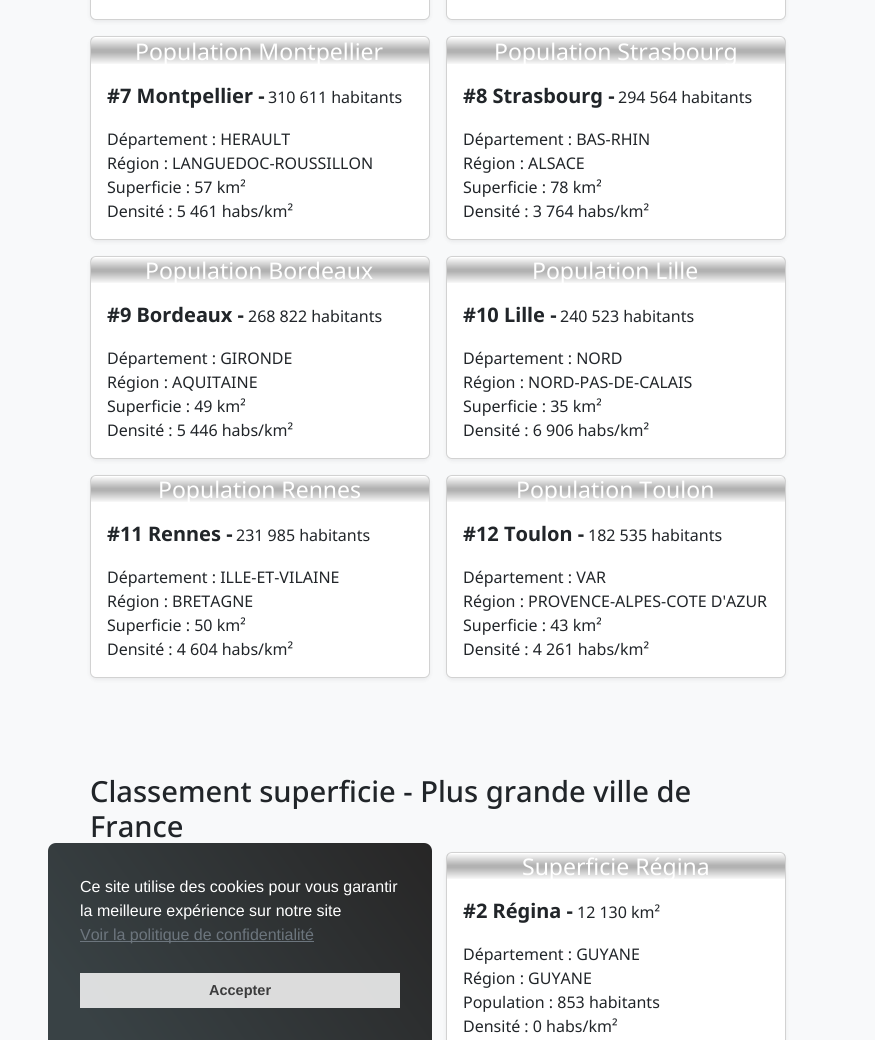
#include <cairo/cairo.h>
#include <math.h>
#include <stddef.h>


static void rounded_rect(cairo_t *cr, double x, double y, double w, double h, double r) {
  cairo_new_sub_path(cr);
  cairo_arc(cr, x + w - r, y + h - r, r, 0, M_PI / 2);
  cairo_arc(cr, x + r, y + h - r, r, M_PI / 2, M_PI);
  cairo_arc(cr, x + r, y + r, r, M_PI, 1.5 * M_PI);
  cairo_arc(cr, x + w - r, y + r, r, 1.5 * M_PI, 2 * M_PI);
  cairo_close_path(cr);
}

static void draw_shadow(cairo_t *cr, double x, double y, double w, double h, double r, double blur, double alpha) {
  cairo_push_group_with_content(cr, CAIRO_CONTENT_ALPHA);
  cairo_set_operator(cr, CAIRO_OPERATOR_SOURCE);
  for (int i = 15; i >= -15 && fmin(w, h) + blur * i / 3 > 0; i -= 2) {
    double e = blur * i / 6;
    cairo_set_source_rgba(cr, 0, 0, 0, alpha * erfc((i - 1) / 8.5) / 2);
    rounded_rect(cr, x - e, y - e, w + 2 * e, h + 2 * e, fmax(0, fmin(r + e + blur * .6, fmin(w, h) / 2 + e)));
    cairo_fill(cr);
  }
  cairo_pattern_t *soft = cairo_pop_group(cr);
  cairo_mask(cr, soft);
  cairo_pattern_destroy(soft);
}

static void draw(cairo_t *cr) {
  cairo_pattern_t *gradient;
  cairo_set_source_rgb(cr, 248 / 255.0, 249 / 255.0, 250 / 255.0);
  cairo_paint(cr);
  cairo_set_source_rgb(cr, 33 / 255.0, 37 / 255.0, 41 / 255.0);
  draw_shadow(cr, 90, -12, 340, 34, 6, 2, 0.07);
  cairo_set_source_rgb(cr, 1, 1, 1);
  rounded_rect(cr, 90.5, -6.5, 339, 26, 5.5);
  cairo_fill_preserve(cr);
  cairo_set_source_rgb(cr, 210 / 255.0, 210 / 255.0, 210 / 255.0);
  cairo_set_line_width(cr, 1);
  cairo_stroke(cr);
  cairo_set_source_rgb(cr, 33 / 255.0, 37 / 255.0, 41 / 255.0);
  draw_shadow(cr, 446, -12, 340, 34, 6, 2, 0.07);
  cairo_set_source_rgb(cr, 1, 1, 1);
  rounded_rect(cr, 446.5, -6.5, 339, 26, 5.5);
  cairo_fill_preserve(cr);
  cairo_set_source_rgb(cr, 210 / 255.0, 210 / 255.0, 210 / 255.0);
  cairo_stroke(cr);
  cairo_set_source_rgb(cr, 33 / 255.0, 37 / 255.0, 41 / 255.0);
  draw_shadow(cr, 90, 38, 340, 204, 6, 2, 0.07);
  cairo_set_source_rgb(cr, 1, 1, 1);
  rounded_rect(cr, 90.5, 36.5, 339, 203, 5.5);
  cairo_fill_preserve(cr);
  cairo_set_source_rgb(cr, 210 / 255.0, 210 / 255.0, 210 / 255.0);
  cairo_stroke(cr);
  gradient = cairo_pattern_create_linear(260, 37, 260, 65);
  cairo_pattern_add_color_stop_rgba(gradient, 0, 0, 0, 0, 0);
  cairo_pattern_add_color_stop_rgba(gradient, 0.45, 0, 0, 0, 0.3);
  cairo_pattern_add_color_stop_rgba(gradient, 0.55, 0, 0, 0, 0.3);
  cairo_pattern_add_color_stop_rgba(gradient, 1, 0, 0, 0, 0);
  cairo_set_source(cr, gradient);
  cairo_pattern_destroy(gradient);
  cairo_rectangle(cr, 91, 38, 338, 26);
  cairo_fill(cr);
  cairo_set_source_rgb(cr, 33 / 255.0, 37 / 255.0, 41 / 255.0);
  draw_shadow(cr, 446, 38, 340, 204, 6, 2, 0.07);
  cairo_set_source_rgb(cr, 1, 1, 1);
  rounded_rect(cr, 446.5, 36.5, 339, 203, 5.5);
  cairo_fill_preserve(cr);
  cairo_set_source_rgb(cr, 210 / 255.0, 210 / 255.0, 210 / 255.0);
  cairo_stroke(cr);
  gradient = cairo_pattern_create_linear(616, 37, 616, 65);
  cairo_pattern_add_color_stop_rgba(gradient, 0, 0, 0, 0, 0);
  cairo_pattern_add_color_stop_rgba(gradient, 0.45, 0, 0, 0, 0.3);
  cairo_pattern_add_color_stop_rgba(gradient, 0.55, 0, 0, 0, 0.3);
  cairo_pattern_add_color_stop_rgba(gradient, 1, 0, 0, 0, 0);
  cairo_set_source(cr, gradient);
  cairo_pattern_destroy(gradient);
  cairo_rectangle(cr, 447, 38, 338, 26);
  cairo_fill(cr);
  cairo_set_source_rgb(cr, 33 / 255.0, 37 / 255.0, 41 / 255.0);
  draw_shadow(cr, 90, 258, 340, 203, 6, 2, 0.07);
  cairo_set_source_rgb(cr, 1, 1, 1);
  rounded_rect(cr, 90.5, 256.5, 339, 202, 5.5);
  cairo_fill_preserve(cr);
  cairo_set_source_rgb(cr, 210 / 255.0, 210 / 255.0, 210 / 255.0);
  cairo_stroke(cr);
  gradient = cairo_pattern_create_linear(260, 257, 260, 284);
  cairo_pattern_add_color_stop_rgba(gradient, 0, 0, 0, 0, 0);
  cairo_pattern_add_color_stop_rgba(gradient, 0.45, 0, 0, 0, 0.3);
  cairo_pattern_add_color_stop_rgba(gradient, 0.55, 0, 0, 0, 0.3);
  cairo_pattern_add_color_stop_rgba(gradient, 1, 0, 0, 0, 0);
  cairo_set_source(cr, gradient);
  cairo_pattern_destroy(gradient);
  cairo_rectangle(cr, 91, 258, 338, 25);
  cairo_fill(cr);
  cairo_set_source_rgb(cr, 33 / 255.0, 37 / 255.0, 41 / 255.0);
  draw_shadow(cr, 446, 258, 340, 203, 6, 2, 0.07);
  cairo_set_source_rgb(cr, 1, 1, 1);
  rounded_rect(cr, 446.5, 256.5, 339, 202, 5.5);
  cairo_fill_preserve(cr);
  cairo_set_source_rgb(cr, 210 / 255.0, 210 / 255.0, 210 / 255.0);
  cairo_stroke(cr);
  gradient = cairo_pattern_create_linear(616, 257, 616, 284);
  cairo_pattern_add_color_stop_rgba(gradient, 0, 0, 0, 0, 0);
  cairo_pattern_add_color_stop_rgba(gradient, 0.45, 0, 0, 0, 0.3);
  cairo_pattern_add_color_stop_rgba(gradient, 0.55, 0, 0, 0, 0.3);
  cairo_pattern_add_color_stop_rgba(gradient, 1, 0, 0, 0, 0);
  cairo_set_source(cr, gradient);
  cairo_pattern_destroy(gradient);
  cairo_rectangle(cr, 447, 258, 338, 25);
  cairo_fill(cr);
  cairo_set_source_rgb(cr, 33 / 255.0, 37 / 255.0, 41 / 255.0);
  draw_shadow(cr, 90, 477, 340, 203, 6, 2, 0.07);
  cairo_set_source_rgb(cr, 1, 1, 1);
  rounded_rect(cr, 90.5, 475.5, 339, 202, 5.5);
  cairo_fill_preserve(cr);
  cairo_set_source_rgb(cr, 210 / 255.0, 210 / 255.0, 210 / 255.0);
  cairo_stroke(cr);
  gradient = cairo_pattern_create_linear(260, 476, 260, 503);
  cairo_pattern_add_color_stop_rgba(gradient, 0, 0, 0, 0, 0);
  cairo_pattern_add_color_stop_rgba(gradient, 0.45, 0, 0, 0, 0.3);
  cairo_pattern_add_color_stop_rgba(gradient, 0.55, 0, 0, 0, 0.3);
  cairo_pattern_add_color_stop_rgba(gradient, 1, 0, 0, 0, 0);
  cairo_set_source(cr, gradient);
  cairo_pattern_destroy(gradient);
  cairo_rectangle(cr, 91, 477, 338, 25);
  cairo_fill(cr);
  cairo_set_source_rgb(cr, 33 / 255.0, 37 / 255.0, 41 / 255.0);
  draw_shadow(cr, 446, 477, 340, 203, 6, 2, 0.07);
  cairo_set_source_rgb(cr, 1, 1, 1);
  rounded_rect(cr, 446.5, 475.5, 339, 202, 5.5);
  cairo_fill_preserve(cr);
  cairo_set_source_rgb(cr, 210 / 255.0, 210 / 255.0, 210 / 255.0);
  cairo_stroke(cr);
  gradient = cairo_pattern_create_linear(616, 476, 616, 503);
  cairo_pattern_add_color_stop_rgba(gradient, 0, 0, 0, 0, 0);
  cairo_pattern_add_color_stop_rgba(gradient, 0.45, 0, 0, 0, 0.3);
  cairo_pattern_add_color_stop_rgba(gradient, 0.55, 0, 0, 0, 0.3);
  cairo_pattern_add_color_stop_rgba(gradient, 1, 0, 0, 0, 0);
  cairo_set_source(cr, gradient);
  cairo_pattern_destroy(gradient);
  cairo_rectangle(cr, 447, 477, 338, 25);
  cairo_fill(cr);
  cairo_set_source_rgb(cr, 33 / 255.0, 37 / 255.0, 41 / 255.0);
  draw_shadow(cr, 446, 854, 340, 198, 6, 2, 0.07);
  cairo_set_source_rgb(cr, 1, 1, 1);
  rounded_rect(cr, 446.5, 852.5, 339, 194, 5.5);
  cairo_fill_preserve(cr);
  cairo_set_source_rgb(cr, 210 / 255.0, 210 / 255.0, 210 / 255.0);
  cairo_stroke(cr);
  gradient = cairo_pattern_create_linear(616, 853, 616, 880);
  cairo_pattern_add_color_stop_rgba(gradient, 0, 0, 0, 0, 0);
  cairo_pattern_add_color_stop_rgba(gradient, 0.45, 0, 0, 0, 0.3);
  cairo_pattern_add_color_stop_rgba(gradient, 0.55, 0, 0, 0, 0.3);
  cairo_pattern_add_color_stop_rgba(gradient, 1, 0, 0, 0, 0);
  cairo_set_source(cr, gradient);
  cairo_pattern_destroy(gradient);
  cairo_rectangle(cr, 447, 854, 338, 25);
  cairo_fill(cr);
  gradient = cairo_pattern_create_linear(413, 816, 67, 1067);
  cairo_pattern_add_color_stop_rgba(gradient, 0, 39 / 255.0, 38 / 255.0, 38 / 255.0, 1);
  cairo_pattern_add_color_stop_rgba(gradient, 0.9, 57 / 255.0, 66 / 255.0, 69 / 255.0, 1);
  cairo_set_source(cr, gradient);
  cairo_pattern_destroy(gradient);
  cairo_new_path(cr);
  cairo_move_to(cr, 56, 843);
  cairo_line_to(cr, 424, 843);
  cairo_curve_to(cr, 428.5, 843, 432, 846.5, 432, 851);
  cairo_line_to(cr, 432, 1040);
  cairo_line_to(cr, 48, 1040);
  cairo_line_to(cr, 48, 851);
  cairo_curve_to(cr, 48, 846.5, 51.5, 843, 56, 843);
  cairo_close_path(cr);
  cairo_fill(cr);
  cairo_set_source_rgb(cr, 108 / 255.0, 117 / 255.0, 125 / 255.0);
  cairo_rectangle(cr, 80, 941, 234, 1);
  cairo_fill(cr);
  cairo_set_source_rgba(cr, 239 / 255.0, 239 / 255.0, 239 / 255.0, 0.9);
  cairo_rectangle(cr, 80, 973, 320, 35);
  cairo_fill(cr);
  cairo_select_font_face(cr, "Noto Sans", CAIRO_FONT_SLANT_NORMAL, CAIRO_FONT_WEIGHT_NORMAL);
  cairo_set_font_size(cr, 23);
  cairo_set_source_rgb(cr, 1, 1, 1);
  cairo_move_to(cr, 135, 60);
  cairo_show_text(cr, "Population Montpellier");
  cairo_select_font_face(cr, "Noto Sans", CAIRO_FONT_SLANT_NORMAL, CAIRO_FONT_WEIGHT_BOLD);
  cairo_set_font_size(cr, 20);
  cairo_set_source_rgb(cr, 33 / 255.0, 37 / 255.0, 41 / 255.0);
  cairo_move_to(cr, 107, 103);
  cairo_show_text(cr, "#7 Montpellier -");
  cairo_select_font_face(cr, "Noto Sans", CAIRO_FONT_SLANT_NORMAL, CAIRO_FONT_WEIGHT_NORMAL);
  cairo_set_font_size(cr, 16);
  cairo_move_to(cr, 268, 103);
  cairo_show_text(cr, "310 611 habitants");
  cairo_move_to(cr, 107, 145);
  cairo_show_text(cr, "Département : HERAULT");
  cairo_move_to(cr, 107, 169);
  cairo_show_text(cr, "Région : LANGUEDOC-ROUSSILLON");
  cairo_move_to(cr, 107, 193);
  cairo_show_text(cr, "Superficie : 57 km²");
  cairo_move_to(cr, 107, 217);
  cairo_show_text(cr, "Densité : 5 461 habs/km²");
  cairo_set_font_size(cr, 23);
  cairo_set_source_rgb(cr, 1, 1, 1);
  cairo_move_to(cr, 494, 60);
  cairo_show_text(cr, "Population Strasbourg");
  cairo_select_font_face(cr, "Noto Sans", CAIRO_FONT_SLANT_NORMAL, CAIRO_FONT_WEIGHT_BOLD);
  cairo_set_font_size(cr, 20);
  cairo_set_source_rgb(cr, 33 / 255.0, 37 / 255.0, 41 / 255.0);
  cairo_move_to(cr, 463, 103);
  cairo_show_text(cr, "#8 Strasbourg -");
  cairo_select_font_face(cr, "Noto Sans", CAIRO_FONT_SLANT_NORMAL, CAIRO_FONT_WEIGHT_NORMAL);
  cairo_set_font_size(cr, 16);
  cairo_move_to(cr, 618, 103);
  cairo_show_text(cr, "294 564 habitants");
  cairo_move_to(cr, 463, 145);
  cairo_show_text(cr, "Département : BAS-RHIN");
  cairo_move_to(cr, 463, 169);
  cairo_show_text(cr, "Région : ALSACE");
  cairo_move_to(cr, 463, 193);
  cairo_show_text(cr, "Superficie : 78 km²");
  cairo_move_to(cr, 463, 217);
  cairo_show_text(cr, "Densité : 3 764 habs/km²");
  cairo_set_font_size(cr, 23);
  cairo_set_source_rgb(cr, 1, 1, 1);
  cairo_move_to(cr, 145, 279);
  cairo_show_text(cr, "Population Bordeaux");
  cairo_select_font_face(cr, "Noto Sans", CAIRO_FONT_SLANT_NORMAL, CAIRO_FONT_WEIGHT_BOLD);
  cairo_set_font_size(cr, 20);
  cairo_set_source_rgb(cr, 33 / 255.0, 37 / 255.0, 41 / 255.0);
  cairo_move_to(cr, 107, 322);
  cairo_show_text(cr, "#9 Bordeaux -");
  cairo_select_font_face(cr, "Noto Sans", CAIRO_FONT_SLANT_NORMAL, CAIRO_FONT_WEIGHT_NORMAL);
  cairo_set_font_size(cr, 16);
  cairo_move_to(cr, 248, 322);
  cairo_show_text(cr, "268 822 habitants");
  cairo_move_to(cr, 107, 364);
  cairo_show_text(cr, "Département : GIRONDE");
  cairo_move_to(cr, 107, 388);
  cairo_show_text(cr, "Région : AQUITAINE");
  cairo_move_to(cr, 107, 412);
  cairo_show_text(cr, "Superficie : 49 km²");
  cairo_move_to(cr, 107, 436);
  cairo_show_text(cr, "Densité : 5 446 habs/km²");
  cairo_set_font_size(cr, 23);
  cairo_set_source_rgb(cr, 1, 1, 1);
  cairo_move_to(cr, 532, 279);
  cairo_show_text(cr, "Population Lille");
  cairo_select_font_face(cr, "Noto Sans", CAIRO_FONT_SLANT_NORMAL, CAIRO_FONT_WEIGHT_BOLD);
  cairo_set_font_size(cr, 20);
  cairo_set_source_rgb(cr, 33 / 255.0, 37 / 255.0, 41 / 255.0);
  cairo_move_to(cr, 463, 322);
  cairo_show_text(cr, "#10 Lille -");
  cairo_select_font_face(cr, "Noto Sans", CAIRO_FONT_SLANT_NORMAL, CAIRO_FONT_WEIGHT_NORMAL);
  cairo_set_font_size(cr, 16);
  cairo_move_to(cr, 560, 322);
  cairo_show_text(cr, "240 523 habitants");
  cairo_move_to(cr, 463, 364);
  cairo_show_text(cr, "Département : NORD");
  cairo_move_to(cr, 463, 388);
  cairo_show_text(cr, "Région : NORD-PAS-DE-CALAIS");
  cairo_move_to(cr, 463, 412);
  cairo_show_text(cr, "Superficie : 35 km²");
  cairo_move_to(cr, 463, 436);
  cairo_show_text(cr, "Densité : 6 906 habs/km²");
  cairo_set_font_size(cr, 23);
  cairo_set_source_rgb(cr, 1, 1, 1);
  cairo_move_to(cr, 158, 498);
  cairo_show_text(cr, "Population Rennes");
  cairo_select_font_face(cr, "Noto Sans", CAIRO_FONT_SLANT_NORMAL, CAIRO_FONT_WEIGHT_BOLD);
  cairo_set_font_size(cr, 20);
  cairo_set_source_rgb(cr, 33 / 255.0, 37 / 255.0, 41 / 255.0);
  cairo_move_to(cr, 107, 541);
  cairo_show_text(cr, "#11 Rennes -");
  cairo_select_font_face(cr, "Noto Sans", CAIRO_FONT_SLANT_NORMAL, CAIRO_FONT_WEIGHT_NORMAL);
  cairo_set_font_size(cr, 16);
  cairo_move_to(cr, 236, 541);
  cairo_show_text(cr, "231 985 habitants");
  cairo_move_to(cr, 107, 583);
  cairo_show_text(cr, "Département : ILLE-ET-VILAINE");
  cairo_move_to(cr, 107, 607);
  cairo_show_text(cr, "Région : BRETAGNE");
  cairo_move_to(cr, 107, 631);
  cairo_show_text(cr, "Superficie : 50 km²");
  cairo_move_to(cr, 107, 655);
  cairo_show_text(cr, "Densité : 4 604 habs/km²");
  cairo_set_font_size(cr, 23);
  cairo_set_source_rgb(cr, 1, 1, 1);
  cairo_move_to(cr, 516, 498);
  cairo_show_text(cr, "Population Toulon");
  cairo_select_font_face(cr, "Noto Sans", CAIRO_FONT_SLANT_NORMAL, CAIRO_FONT_WEIGHT_BOLD);
  cairo_set_font_size(cr, 20);
  cairo_set_source_rgb(cr, 33 / 255.0, 37 / 255.0, 41 / 255.0);
  cairo_move_to(cr, 463, 541);
  cairo_show_text(cr, "#12 Toulon -");
  cairo_select_font_face(cr, "Noto Sans", CAIRO_FONT_SLANT_NORMAL, CAIRO_FONT_WEIGHT_NORMAL);
  cairo_set_font_size(cr, 16);
  cairo_move_to(cr, 588, 541);
  cairo_show_text(cr, "182 535 habitants");
  cairo_move_to(cr, 463, 583);
  cairo_show_text(cr, "Département : VAR");
  cairo_move_to(cr, 463, 607);
  cairo_show_text(cr, "Région : PROVENCE-ALPES-COTE D'AZUR");
  cairo_move_to(cr, 463, 631);
  cairo_show_text(cr, "Superficie : 43 km²");
  cairo_move_to(cr, 463, 655);
  cairo_show_text(cr, "Densité : 4 261 habs/km²");
  cairo_select_font_face(cr, "Noto Sans Medium", CAIRO_FONT_SLANT_NORMAL, CAIRO_FONT_WEIGHT_NORMAL);
  cairo_set_font_size(cr, 29.1);
  cairo_move_to(cr, 90, 802);
  cairo_show_text(cr, "Classement superficie - Plus grande ville de");
  cairo_move_to(cr, 90, 837);
  cairo_show_text(cr, "France");
  cairo_select_font_face(cr, "Noto Sans", CAIRO_FONT_SLANT_NORMAL, CAIRO_FONT_WEIGHT_NORMAL);
  cairo_set_font_size(cr, 23);
  cairo_set_source_rgb(cr, 1, 1, 1);
  cairo_move_to(cr, 522, 875);
  cairo_show_text(cr, "Superficie Régina");
  cairo_select_font_face(cr, "Noto Sans", CAIRO_FONT_SLANT_NORMAL, CAIRO_FONT_WEIGHT_BOLD);
  cairo_set_font_size(cr, 20);
  cairo_set_source_rgb(cr, 33 / 255.0, 37 / 255.0, 41 / 255.0);
  cairo_move_to(cr, 463, 918);
  cairo_show_text(cr, "#2 Régina -");
  cairo_select_font_face(cr, "Noto Sans", CAIRO_FONT_SLANT_NORMAL, CAIRO_FONT_WEIGHT_NORMAL);
  cairo_set_font_size(cr, 16);
  cairo_move_to(cr, 577, 918);
  cairo_show_text(cr, "12 130 km²");
  cairo_move_to(cr, 463, 960);
  cairo_show_text(cr, "Département : GUYANE");
  cairo_move_to(cr, 463, 984);
  cairo_show_text(cr, "Région : GUYANE");
  cairo_move_to(cr, 463, 1008);
  cairo_show_text(cr, "Population : 853 habitants");
  cairo_move_to(cr, 463, 1032);
  cairo_show_text(cr, "Densité : 0 habs/km²");
  cairo_select_font_face(cr, "Liberation Sans", CAIRO_FONT_SLANT_NORMAL, CAIRO_FONT_WEIGHT_NORMAL);
  cairo_set_source_rgb(cr, 1, 1, 1);
  cairo_move_to(cr, 80, 892);
  cairo_show_text(cr, "Ce site utilise des cookies pour vous garantir");
  cairo_move_to(cr, 80, 916);
  cairo_show_text(cr, "la meilleure expérience sur notre site");
  cairo_set_source_rgb(cr, 108 / 255.0, 117 / 255.0, 125 / 255.0);
  cairo_move_to(cr, 80, 940);
  cairo_show_text(cr, "Voir la politique de confidentialité");
  cairo_select_font_face(cr, "Liberation Sans", CAIRO_FONT_SLANT_NORMAL, CAIRO_FONT_WEIGHT_BOLD);
  cairo_set_font_size(cr, 14.5);
  cairo_set_source_rgb(cr, 60 / 255.0, 60 / 255.0, 61 / 255.0);
  cairo_move_to(cr, 209, 995);
  cairo_show_text(cr, "Accepter");
}

int main(void) {
  cairo_surface_t *surface = cairo_image_surface_create(CAIRO_FORMAT_RGB24, 875, 1040);
  cairo_t *cr = cairo_create(surface);
  cairo_font_options_t *options = cairo_font_options_create();
  cairo_font_options_set_hint_metrics(options, CAIRO_HINT_METRICS_OFF);
  cairo_font_options_set_hint_style(options, CAIRO_HINT_STYLE_NONE);
  cairo_set_font_options(cr, options);
  cairo_set_miter_limit(cr, 4);
  draw(cr);
  cairo_surface_write_to_png(surface, "out.png");
  cairo_font_options_destroy(options);
  cairo_destroy(cr);
  cairo_surface_destroy(surface);
  return 0;
}
